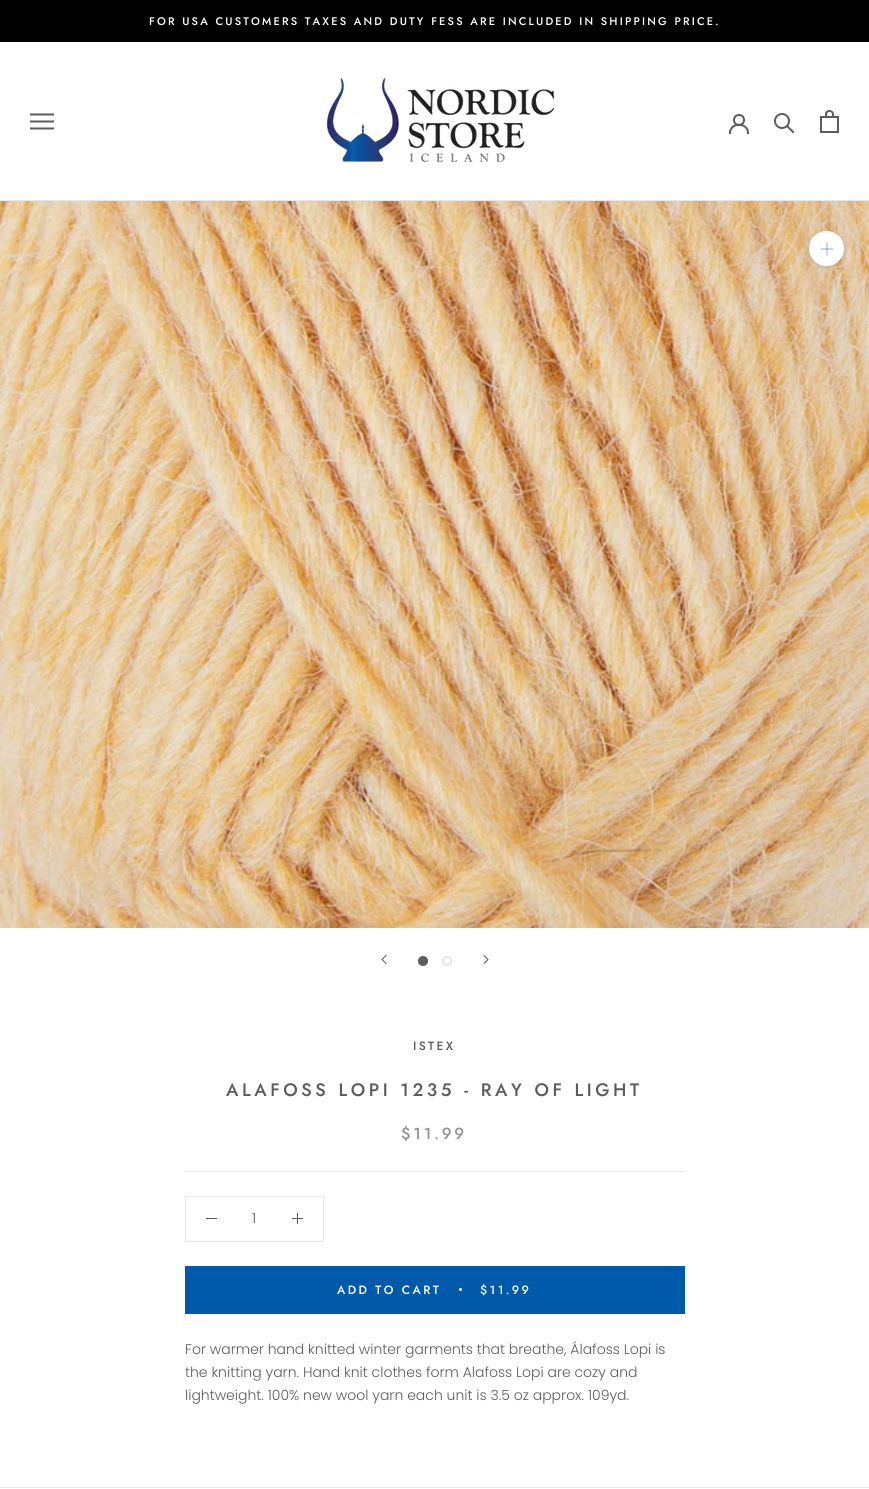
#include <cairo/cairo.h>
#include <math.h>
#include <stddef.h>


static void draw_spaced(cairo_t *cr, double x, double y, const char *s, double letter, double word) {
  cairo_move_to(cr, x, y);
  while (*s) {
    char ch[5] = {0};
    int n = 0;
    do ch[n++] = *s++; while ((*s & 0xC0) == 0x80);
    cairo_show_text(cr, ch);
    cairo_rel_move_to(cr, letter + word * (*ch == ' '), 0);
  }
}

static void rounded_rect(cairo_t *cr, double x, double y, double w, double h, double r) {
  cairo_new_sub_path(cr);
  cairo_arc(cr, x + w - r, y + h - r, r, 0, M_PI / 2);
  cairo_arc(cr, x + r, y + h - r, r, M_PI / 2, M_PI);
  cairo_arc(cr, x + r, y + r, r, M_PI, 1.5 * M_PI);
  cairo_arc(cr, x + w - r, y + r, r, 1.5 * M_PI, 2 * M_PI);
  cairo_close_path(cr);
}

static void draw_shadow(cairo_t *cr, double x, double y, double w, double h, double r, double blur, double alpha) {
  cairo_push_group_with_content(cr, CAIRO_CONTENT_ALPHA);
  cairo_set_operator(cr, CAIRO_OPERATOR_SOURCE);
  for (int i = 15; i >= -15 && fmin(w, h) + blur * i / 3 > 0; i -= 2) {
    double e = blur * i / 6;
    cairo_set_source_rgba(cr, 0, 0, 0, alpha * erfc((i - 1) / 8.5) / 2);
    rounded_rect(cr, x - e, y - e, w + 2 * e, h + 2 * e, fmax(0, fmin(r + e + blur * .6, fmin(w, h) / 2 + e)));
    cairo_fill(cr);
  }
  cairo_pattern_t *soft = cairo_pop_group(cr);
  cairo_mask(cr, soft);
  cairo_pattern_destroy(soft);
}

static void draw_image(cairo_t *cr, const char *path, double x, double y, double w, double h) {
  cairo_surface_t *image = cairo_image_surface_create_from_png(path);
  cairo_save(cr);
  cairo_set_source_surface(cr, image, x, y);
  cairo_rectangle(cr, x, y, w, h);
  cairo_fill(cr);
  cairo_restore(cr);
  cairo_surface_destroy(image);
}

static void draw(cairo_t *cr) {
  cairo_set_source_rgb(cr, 1, 1, 1);
  cairo_paint(cr);
  cairo_set_source_rgb(cr, 0, 0, 0);
  cairo_rectangle(cr, 0, 0, 869, 42);
  cairo_fill(cr);
  cairo_set_source_rgb(cr, 231 / 255.0, 231 / 255.0, 231 / 255.0);
  cairo_rectangle(cr, 0, 200, 869, 1);
  cairo_fill(cr);
  draw_image(cr, "images/1.png", 30, 113, 24, 17);
  draw_image(cr, "images/2.png", 326, 78, 229, 85);
  cairo_new_path(cr);
  cairo_move_to(cr, 730, 133);
  cairo_curve_to(cr, 730, 122, 748, 122, 748, 133);
  cairo_set_source_rgb(cr, 92 / 255.0, 92 / 255.0, 92 / 255.0);
  cairo_set_line_cap(cr, CAIRO_LINE_CAP_SQUARE);
  cairo_stroke(cr);
  cairo_arc(cr, 739, 120, 5, 0, 2 * M_PI);
  cairo_set_line_cap(cr, CAIRO_LINE_CAP_BUTT);
  cairo_stroke(cr);
  cairo_new_path(cr);
  cairo_move_to(cr, 793, 132);
  cairo_line_to(cr, 787.5, 126.5);
  cairo_set_line_cap(cr, CAIRO_LINE_CAP_SQUARE);
  cairo_stroke(cr);
  cairo_arc(cr, 782, 121, 7, 0, 2 * M_PI);
  cairo_set_line_cap(cr, CAIRO_LINE_CAP_BUTT);
  cairo_stroke(cr);
  draw_image(cr, "images/3.png", 820, 110, 19, 23);
  draw_image(cr, "images/4.png", 0, 201, 869, 727);
  cairo_set_source_rgb(cr, 54 / 255.0, 54 / 255.0, 54 / 255.0);
  draw_shadow(cr, 809, 232, 35, 35, 17.5, 2.5, 0.15);
  cairo_set_source_rgb(cr, 1, 1, 1);
  cairo_arc(cr, 826.5, 248.5, 17.5, 0, 2 * M_PI);
  cairo_fill(cr);
  cairo_new_path(cr);
  cairo_move_to(cr, 827, 243);
  cairo_line_to(cr, 827, 255);
  cairo_set_source_rgb(cr, 128 / 255.0, 172 / 255.0, 212 / 255.0);
  cairo_set_line_width(cr, 0.9);
  cairo_set_line_cap(cr, CAIRO_LINE_CAP_SQUARE);
  cairo_stroke(cr);
  cairo_new_path(cr);
  cairo_move_to(cr, 821, 249);
  cairo_line_to(cr, 833, 249);
  cairo_set_source_rgba(cr, 0, 89 / 255.0, 169 / 255.0, 0.5);
  cairo_stroke(cr);
  cairo_new_path(cr);
  cairo_move_to(cr, 386, 963.5);
  cairo_line_to(cr, 382, 959.5);
  cairo_line_to(cr, 386, 955.5);
  cairo_set_source_rgb(cr, 92 / 255.0, 92 / 255.0, 92 / 255.0);
  cairo_set_line_width(cr, 1);
  cairo_stroke(cr);
  cairo_arc(cr, 423, 961, 4, 0, 2 * M_PI);
  cairo_fill_preserve(cr);
  cairo_set_line_width(cr, 2);
  cairo_set_line_cap(cr, CAIRO_LINE_CAP_BUTT);
  cairo_stroke(cr);
  cairo_arc(cr, 447, 961, 4, 0, 2 * M_PI);
  cairo_set_source_rgb(cr, 231 / 255.0, 231 / 255.0, 231 / 255.0);
  cairo_stroke(cr);
  cairo_new_path(cr);
  cairo_move_to(cr, 484, 963.5);
  cairo_line_to(cr, 488, 959.5);
  cairo_line_to(cr, 484, 955.5);
  cairo_set_source_rgb(cr, 92 / 255.0, 92 / 255.0, 92 / 255.0);
  cairo_set_line_width(cr, 1);
  cairo_set_line_cap(cr, CAIRO_LINE_CAP_SQUARE);
  cairo_stroke(cr);
  cairo_set_source_rgb(cr, 231 / 255.0, 231 / 255.0, 231 / 255.0);
  cairo_rectangle(cr, 185, 1171, 500, 1);
  cairo_fill(cr);
  cairo_rectangle(cr, 185.5, 1196.5, 138, 45);
  cairo_set_line_cap(cr, CAIRO_LINE_CAP_BUTT);
  cairo_stroke(cr);
  cairo_set_source_rgb(cr, 92 / 255.0, 92 / 255.0, 92 / 255.0);
  cairo_rectangle(cr, 206, 1218, 11, 1);
  cairo_fill(cr);
  cairo_rectangle(cr, 297, 1213, 1, 11);
  cairo_fill(cr);
  cairo_rectangle(cr, 292, 1218, 11, 1);
  cairo_fill(cr);
  cairo_rectangle(cr, 185.5, 1266.5, 499, 47);
  cairo_set_source_rgb(cr, 0, 89 / 255.0, 169 / 255.0);
  cairo_stroke(cr);
  cairo_rectangle(cr, 186, 1267, 498, 46);
  cairo_fill(cr);
  cairo_set_source_rgb(cr, 1, 1, 1);
  cairo_arc(cr, 460.5, 1289.5, 1.5, 0, 2 * M_PI);
  cairo_fill(cr);
  cairo_set_source_rgb(cr, 231 / 255.0, 231 / 255.0, 231 / 255.0);
  cairo_rectangle(cr, 0, 1487, 869, 1);
  cairo_fill(cr);
  cairo_select_font_face(cr, "Jost Medium", CAIRO_FONT_SLANT_NORMAL, CAIRO_FONT_WEIGHT_NORMAL);
  cairo_set_font_size(cr, 11);
  cairo_set_source_rgb(cr, 1, 1, 1);
  draw_spaced(cr, 149, 25, "FOR USA CUSTOMERS TAXES AND DUTY FESS ARE INCLUDED IN SHIPPING PRICE.", 2.2, 0);
  cairo_set_font_size(cr, 12);
  cairo_set_source_rgb(cr, 92 / 255.0, 92 / 255.0, 92 / 255.0);
  draw_spaced(cr, 413, 1050, "ISTEX", 2.4, 0);
  cairo_set_font_size(cr, 18);
  draw_spaced(cr, 226, 1096, "ALAFOSS LOPI 1235 - RAY OF LIGHT", 3.6, 0);
  cairo_set_font_size(cr, 16);
  cairo_set_source_rgb(cr, 147 / 255.0, 147 / 255.0, 147 / 255.0);
  draw_spaced(cr, 401, 1139, "$11.99", 2.75, 0);
  cairo_select_font_face(cr, "Poppins Light", CAIRO_FONT_SLANT_NORMAL, CAIRO_FONT_WEIGHT_NORMAL);
  cairo_set_font_size(cr, 14);
  cairo_set_source_rgb(cr, 92 / 255.0, 92 / 255.0, 92 / 255.0);
  cairo_move_to(cr, 252, 1223);
  cairo_show_text(cr, "1");
  cairo_select_font_face(cr, "Jost Medium", CAIRO_FONT_SLANT_NORMAL, CAIRO_FONT_WEIGHT_NORMAL);
  cairo_set_font_size(cr, 12);
  cairo_set_source_rgb(cr, 1, 1, 1);
  draw_spaced(cr, 337, 1294, "ADD TO CART", 2.4, 0);
  draw_spaced(cr, 480, 1294, "$11.99", 2.4, 0);
  cairo_select_font_face(cr, "Poppins Light", CAIRO_FONT_SLANT_NORMAL, CAIRO_FONT_WEIGHT_NORMAL);
  cairo_set_font_size(cr, 14);
  cairo_set_source_rgb(cr, 92 / 255.0, 92 / 255.0, 92 / 255.0);
  cairo_move_to(cr, 185, 1354);
  cairo_show_text(cr, "For warmer hand knitted winter garments that breathe, Álafoss Lopi is");
  cairo_move_to(cr, 185, 1377);
  cairo_show_text(cr, "the knitting yarn. Hand knit clothes form Alafoss Lopi are cozy and");
  cairo_move_to(cr, 185, 1400);
  cairo_show_text(cr, "lightweight. 100% new wool yarn each unit is 3.5 oz approx. 109yd.");
}

int main(void) {
  cairo_surface_t *surface = cairo_image_surface_create(CAIRO_FORMAT_RGB24, 869, 1489);
  cairo_t *cr = cairo_create(surface);
  cairo_font_options_t *options = cairo_font_options_create();
  cairo_font_options_set_hint_metrics(options, CAIRO_HINT_METRICS_OFF);
  cairo_font_options_set_hint_style(options, CAIRO_HINT_STYLE_NONE);
  cairo_set_font_options(cr, options);
  cairo_set_miter_limit(cr, 4);
  draw(cr);
  cairo_surface_write_to_png(surface, "out.png");
  cairo_font_options_destroy(options);
  cairo_destroy(cr);
  cairo_surface_destroy(surface);
  return 0;
}
